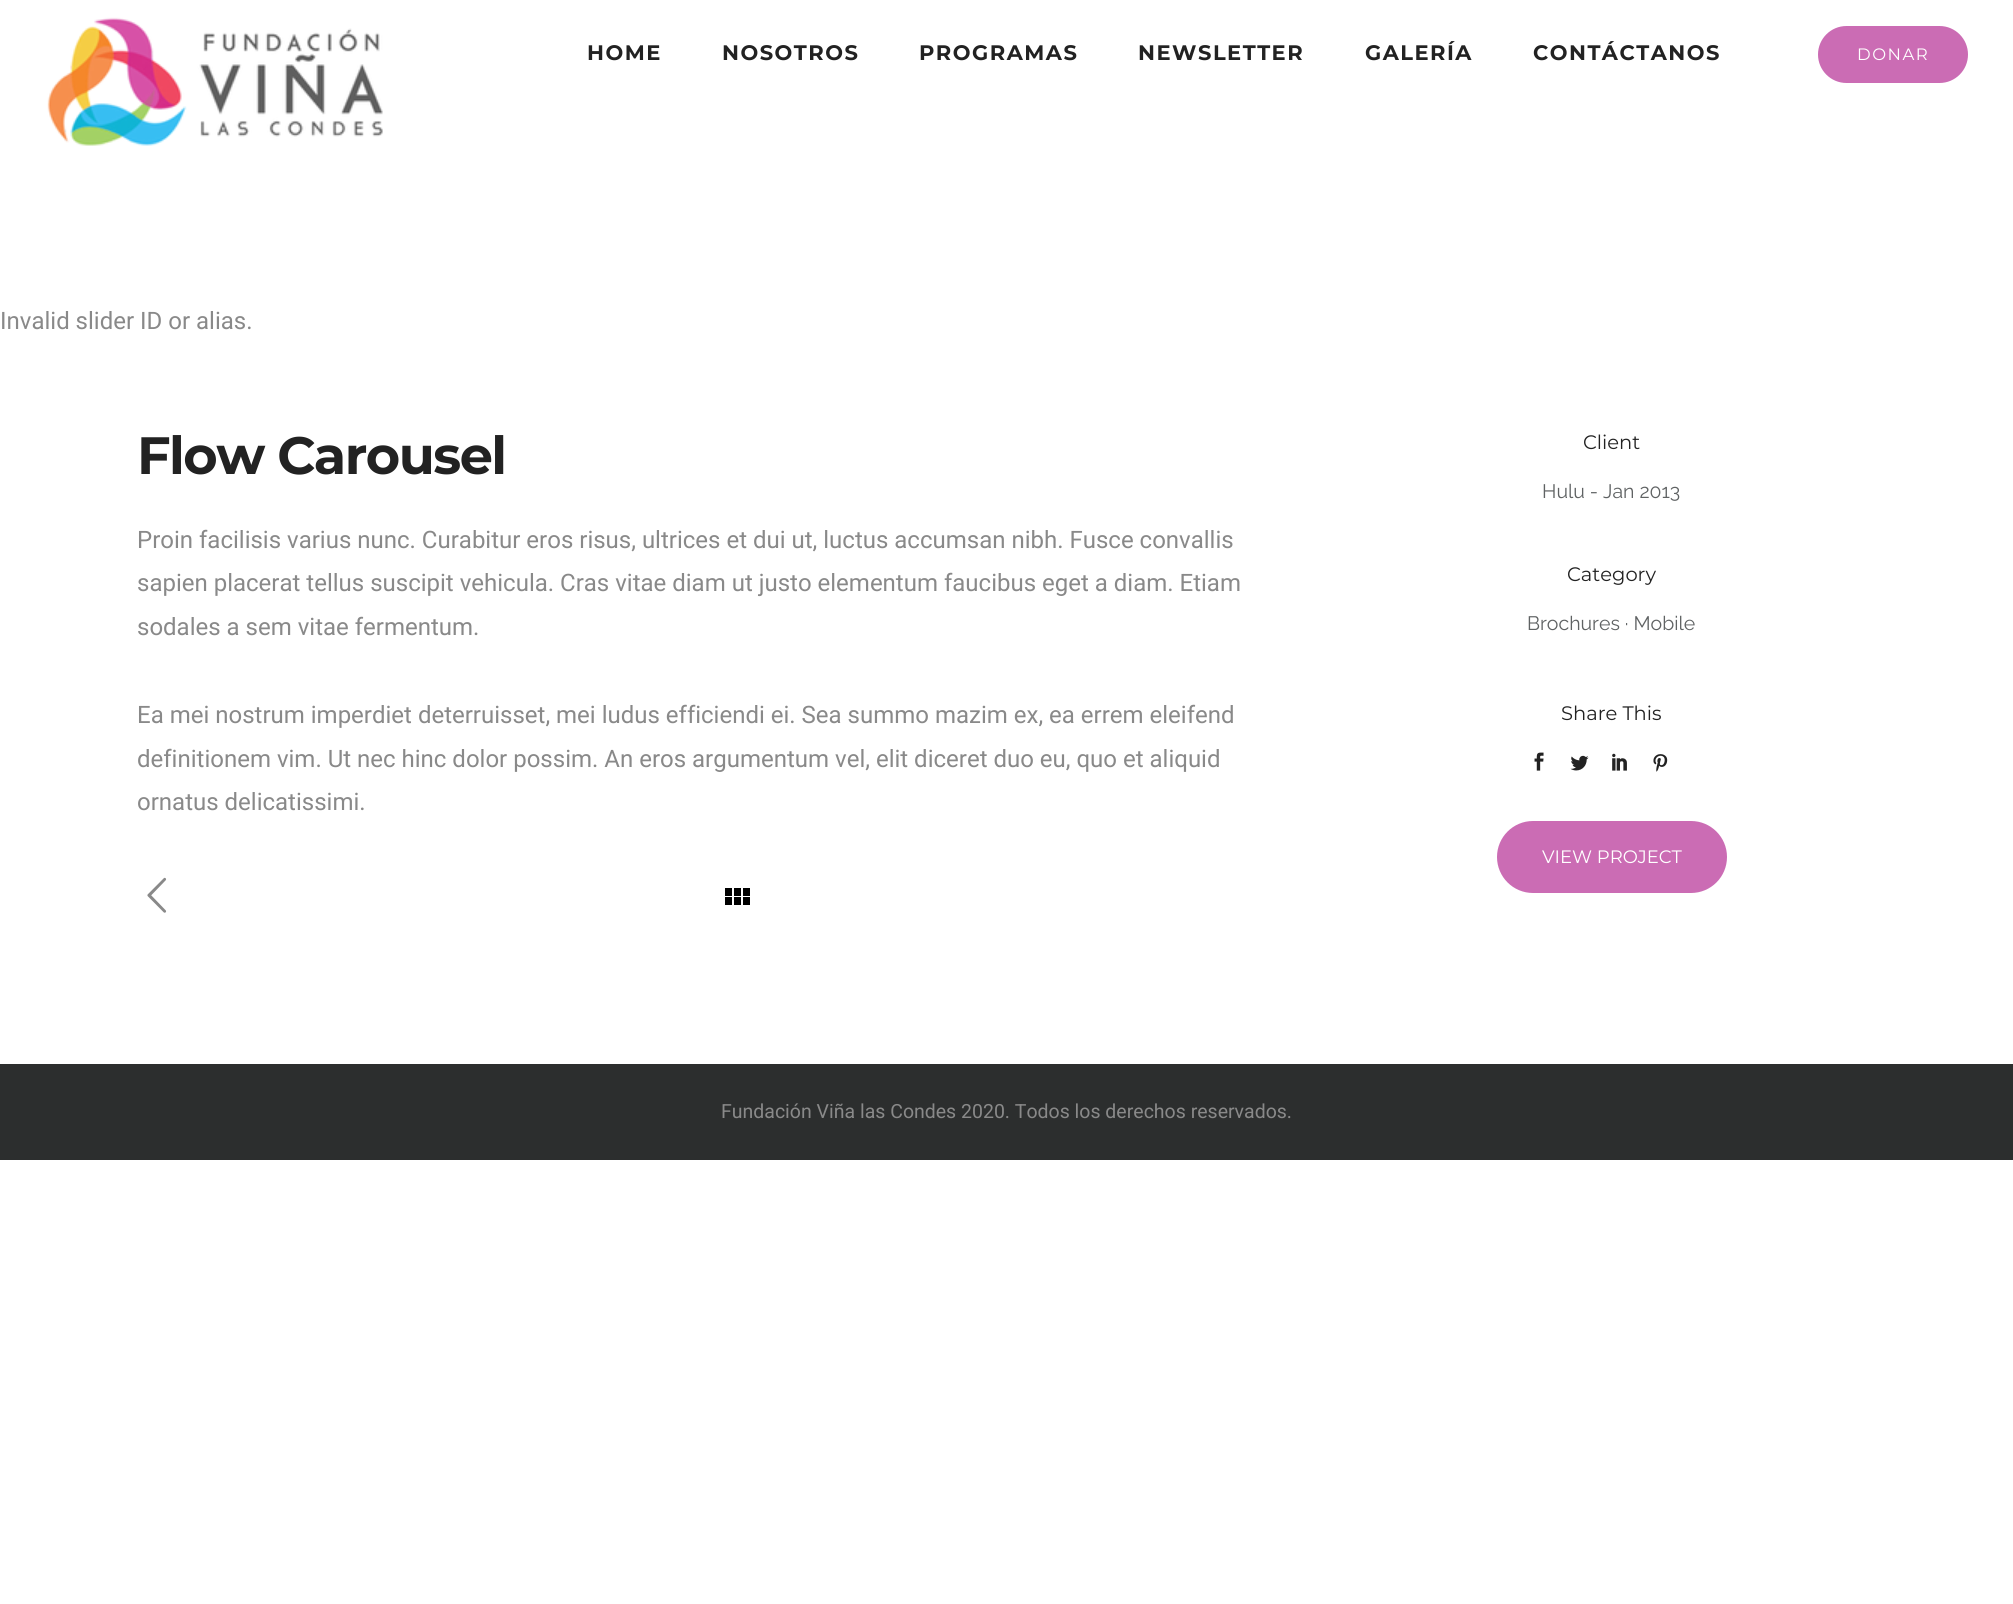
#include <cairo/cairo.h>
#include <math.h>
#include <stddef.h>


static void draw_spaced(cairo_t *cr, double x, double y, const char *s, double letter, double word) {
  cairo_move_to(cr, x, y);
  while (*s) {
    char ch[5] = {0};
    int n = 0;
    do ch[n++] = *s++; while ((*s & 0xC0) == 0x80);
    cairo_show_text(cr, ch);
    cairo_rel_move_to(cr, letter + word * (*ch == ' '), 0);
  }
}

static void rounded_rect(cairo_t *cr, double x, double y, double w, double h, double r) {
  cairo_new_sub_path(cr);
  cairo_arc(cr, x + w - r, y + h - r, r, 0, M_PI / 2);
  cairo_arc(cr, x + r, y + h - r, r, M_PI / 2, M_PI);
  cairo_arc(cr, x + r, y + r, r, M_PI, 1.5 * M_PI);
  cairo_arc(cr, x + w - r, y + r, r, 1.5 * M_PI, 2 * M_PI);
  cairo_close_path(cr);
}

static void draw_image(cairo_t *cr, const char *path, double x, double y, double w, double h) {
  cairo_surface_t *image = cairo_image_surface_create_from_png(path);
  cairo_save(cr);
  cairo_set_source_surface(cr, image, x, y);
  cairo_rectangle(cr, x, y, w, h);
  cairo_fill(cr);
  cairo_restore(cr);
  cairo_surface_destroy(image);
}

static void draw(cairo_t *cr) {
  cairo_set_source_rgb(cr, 1, 1, 1);
  cairo_paint(cr);
  draw_image(cr, "images/1.png", 47, 17, 336, 129);
  cairo_set_source_rgb(cr, 203 / 255.0, 108 / 255.0, 180 / 255.0);
  rounded_rect(cr, 1819, 27, 148, 55, 27.5);
  cairo_fill_preserve(cr);
  cairo_stroke(cr);
  draw_image(cr, "images/2.png", 147, 877, 20, 36);
  cairo_set_source_rgb(cr, 0, 0, 0);
  cairo_rectangle(cr, 725, 888, 7, 8);
  cairo_fill(cr);
  cairo_rectangle(cr, 734, 888, 7, 8);
  cairo_fill(cr);
  cairo_rectangle(cr, 743, 888, 7, 8);
  cairo_fill(cr);
  cairo_rectangle(cr, 725, 897, 7, 8);
  cairo_fill(cr);
  cairo_rectangle(cr, 734, 897, 7, 8);
  cairo_fill(cr);
  cairo_rectangle(cr, 743, 897, 7, 8);
  cairo_fill(cr);
  draw_image(cr, "images/3.png", 1534, 752, 10, 19);
  draw_image(cr, "images/4.png", 1570, 755, 19, 16);
  draw_image(cr, "images/5.png", 1612, 753, 15, 18);
  draw_image(cr, "images/6.png", 1653, 754, 15, 18);
  cairo_set_source_rgb(cr, 203 / 255.0, 108 / 255.0, 180 / 255.0);
  rounded_rect(cr, 1497, 821, 230, 72, 36);
  cairo_fill(cr);
  cairo_set_source_rgb(cr, 44 / 255.0, 46 / 255.0, 46 / 255.0);
  cairo_rectangle(cr, 0, 1064, 2013, 96);
  cairo_fill(cr);
  cairo_select_font_face(cr, "Montserrat", CAIRO_FONT_SLANT_NORMAL, CAIRO_FONT_WEIGHT_BOLD);
  cairo_set_font_size(cr, 21);
  cairo_set_source_rgb(cr, 34 / 255.0, 34 / 255.0, 34 / 255.0);
  draw_spaced(cr, 587, 60, "HOME", 1.5, 0);
  draw_spaced(cr, 722, 60, "NOSOTROS", 1.5, 0);
  draw_spaced(cr, 919, 60, "PROGRAMAS", 1.5, 0);
  draw_spaced(cr, 1138, 60, "NEWSLETTER", 1.5, 0);
  draw_spaced(cr, 1365, 60, "GALERÍA", 1.5, 0);
  draw_spaced(cr, 1533, 60, "CONTÁCTANOS", 1.5, 0);
  cairo_select_font_face(cr, "Montserrat", CAIRO_FONT_SLANT_NORMAL, CAIRO_FONT_WEIGHT_NORMAL);
  cairo_set_font_size(cr, 16.5);
  cairo_set_source_rgb(cr, 1, 1, 1);
  draw_spaced(cr, 1857, 60, "DONAR", 1.5, 0);
  cairo_select_font_face(cr, "Roboto", CAIRO_FONT_SLANT_NORMAL, CAIRO_FONT_WEIGHT_NORMAL);
  cairo_set_font_size(cr, 24);
  cairo_set_source_rgb(cr, 137 / 255.0, 137 / 255.0, 137 / 255.0);
  cairo_move_to(cr, 0, 329);
  cairo_show_text(cr, "Invalid slider ID or alias.");
  cairo_select_font_face(cr, "Montserrat", CAIRO_FONT_SLANT_NORMAL, CAIRO_FONT_WEIGHT_BOLD);
  cairo_set_font_size(cr, 52.5);
  cairo_set_source_rgb(cr, 34 / 255.0, 34 / 255.0, 34 / 255.0);
  draw_spaced(cr, 137, 474, "Flow Carousel", -1.5, 0);
  cairo_select_font_face(cr, "Roboto", CAIRO_FONT_SLANT_NORMAL, CAIRO_FONT_WEIGHT_NORMAL);
  cairo_set_font_size(cr, 24);
  cairo_set_source_rgb(cr, 137 / 255.0, 137 / 255.0, 137 / 255.0);
  cairo_move_to(cr, 137, 548);
  cairo_show_text(cr, "Proin facilisis varius nunc. Curabitur eros risus, ultrices et dui ut, luctus accumsan nibh. Fusce convallis");
  cairo_move_to(cr, 137, 591);
  cairo_show_text(cr, "sapien placerat tellus suscipit vehicula. Cras vitae diam ut justo elementum faucibus eget a diam. Etiam");
  cairo_move_to(cr, 137, 635);
  cairo_show_text(cr, "sodales a sem vitae fermentum.");
  cairo_move_to(cr, 137, 723);
  cairo_show_text(cr, "Ea mei nostrum imperdiet deterruisset, mei ludus efficiendi ei. Sea summo mazim ex, ea errem eleifend");
  cairo_move_to(cr, 137, 767);
  cairo_show_text(cr, "definitionem vim. Ut nec hinc dolor possim. An eros argumentum vel, elit diceret duo eu, quo et aliquid");
  cairo_move_to(cr, 137, 810);
  cairo_show_text(cr, "ornatus delicatissimi.");
  cairo_select_font_face(cr, "Montserrat", CAIRO_FONT_SLANT_NORMAL, CAIRO_FONT_WEIGHT_NORMAL);
  cairo_set_font_size(cr, 19.5);
  cairo_set_source_rgb(cr, 34 / 255.0, 34 / 255.0, 34 / 255.0);
  cairo_move_to(cr, 1583, 449);
  cairo_show_text(cr, "Client");
  cairo_select_font_face(cr, "Raleway", CAIRO_FONT_SLANT_NORMAL, CAIRO_FONT_WEIGHT_NORMAL);
  cairo_set_source_rgb(cr, 95 / 255.0, 98 / 255.0, 99 / 255.0);
  cairo_move_to(cr, 1542, 498);
  cairo_show_text(cr, "Hulu - Jan 2013");
  cairo_select_font_face(cr, "Montserrat", CAIRO_FONT_SLANT_NORMAL, CAIRO_FONT_WEIGHT_NORMAL);
  cairo_set_source_rgb(cr, 34 / 255.0, 34 / 255.0, 34 / 255.0);
  cairo_move_to(cr, 1567, 581);
  cairo_show_text(cr, "Category");
  cairo_select_font_face(cr, "Raleway", CAIRO_FONT_SLANT_NORMAL, CAIRO_FONT_WEIGHT_NORMAL);
  cairo_set_source_rgb(cr, 95 / 255.0, 98 / 255.0, 99 / 255.0);
  cairo_move_to(cr, 1527, 630);
  cairo_show_text(cr, "Brochures · Mobile");
  cairo_select_font_face(cr, "Montserrat", CAIRO_FONT_SLANT_NORMAL, CAIRO_FONT_WEIGHT_NORMAL);
  cairo_set_source_rgb(cr, 34 / 255.0, 34 / 255.0, 34 / 255.0);
  cairo_move_to(cr, 1561, 720);
  cairo_show_text(cr, "Share This");
  cairo_set_font_size(cr, 18);
  cairo_set_source_rgb(cr, 1, 1, 1);
  cairo_move_to(cr, 1542, 863);
  cairo_show_text(cr, "VIEW PROJECT");
  cairo_select_font_face(cr, "Roboto", CAIRO_FONT_SLANT_NORMAL, CAIRO_FONT_WEIGHT_NORMAL);
  cairo_set_font_size(cr, 19.5);
  cairo_set_source_rgb(cr, 137 / 255.0, 137 / 255.0, 137 / 255.0);
  cairo_move_to(cr, 721, 1118);
  cairo_show_text(cr, "Fundación Viña las Condes 2020. Todos los derechos reservados.");
}

int main(void) {
  cairo_surface_t *surface = cairo_image_surface_create(CAIRO_FORMAT_RGB24, 2013, 1604);
  cairo_t *cr = cairo_create(surface);
  cairo_font_options_t *options = cairo_font_options_create();
  cairo_font_options_set_hint_metrics(options, CAIRO_HINT_METRICS_OFF);
  cairo_font_options_set_hint_style(options, CAIRO_HINT_STYLE_NONE);
  cairo_set_font_options(cr, options);
  cairo_set_miter_limit(cr, 4);
  draw(cr);
  cairo_surface_write_to_png(surface, "out.png");
  cairo_font_options_destroy(options);
  cairo_destroy(cr);
  cairo_surface_destroy(surface);
  return 0;
}
